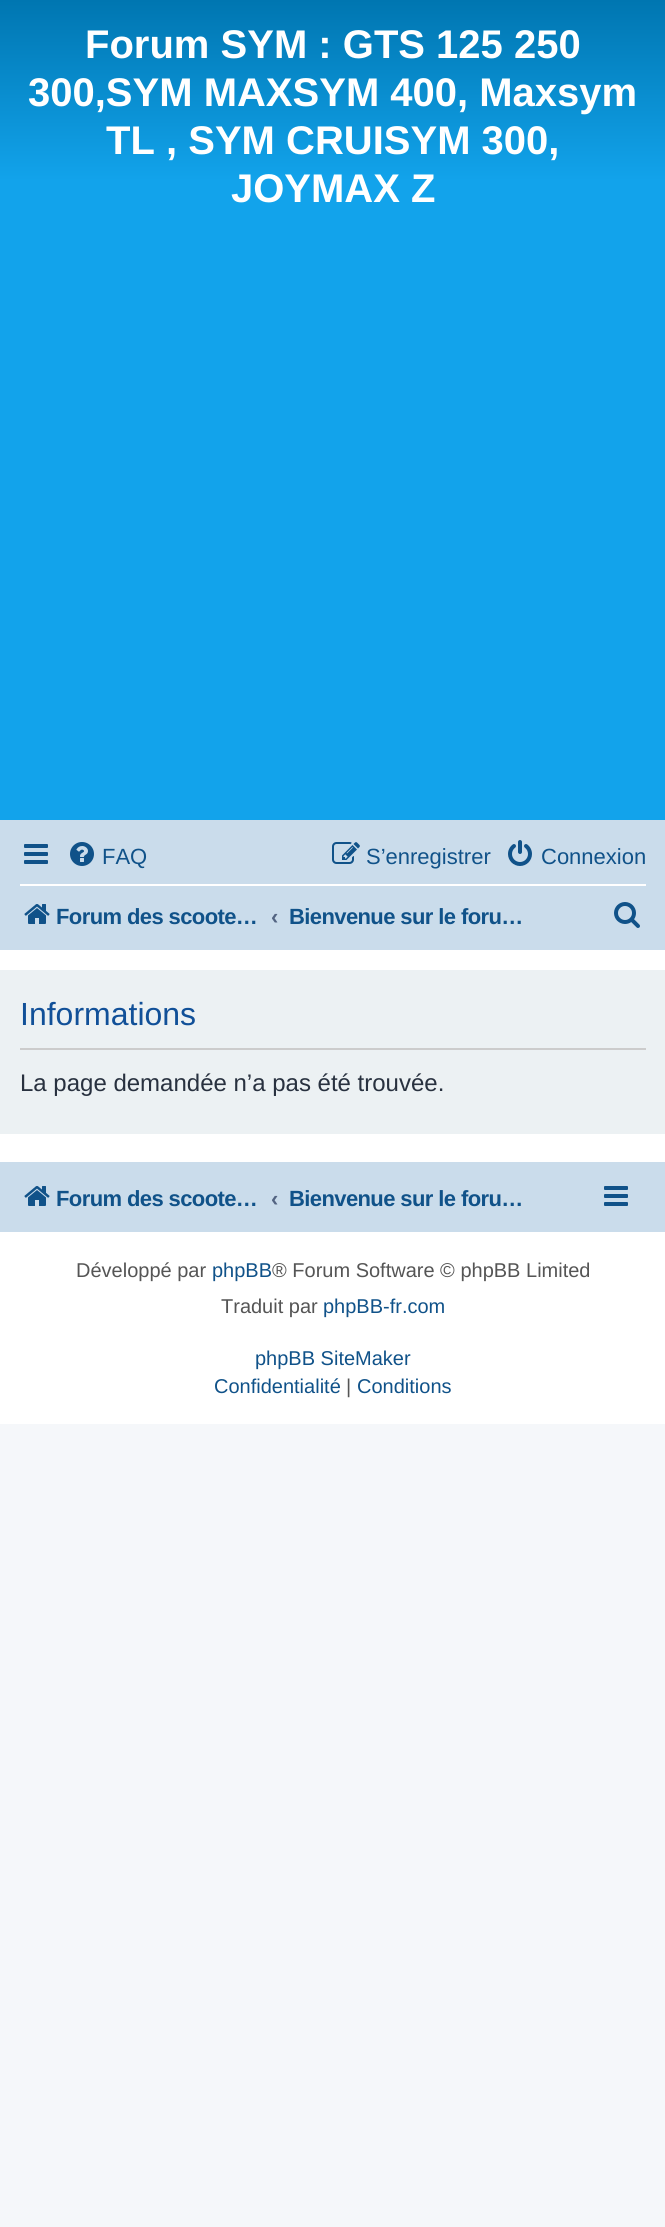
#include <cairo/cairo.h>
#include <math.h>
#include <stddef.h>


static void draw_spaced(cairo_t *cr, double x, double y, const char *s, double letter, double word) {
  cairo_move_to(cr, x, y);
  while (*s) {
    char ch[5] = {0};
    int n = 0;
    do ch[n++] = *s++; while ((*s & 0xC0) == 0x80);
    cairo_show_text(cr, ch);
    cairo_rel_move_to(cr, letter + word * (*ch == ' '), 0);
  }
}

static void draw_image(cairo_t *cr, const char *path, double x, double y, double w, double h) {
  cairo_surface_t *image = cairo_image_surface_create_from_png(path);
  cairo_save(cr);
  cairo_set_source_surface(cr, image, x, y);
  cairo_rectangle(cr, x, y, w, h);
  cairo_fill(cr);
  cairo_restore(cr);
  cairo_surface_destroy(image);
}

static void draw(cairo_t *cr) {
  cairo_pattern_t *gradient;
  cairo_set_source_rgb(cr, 245 / 255.0, 247 / 255.0, 250 / 255.0);
  cairo_paint(cr);
  cairo_set_source_rgb(cr, 1, 1, 1);
  cairo_rectangle(cr, 0, 950, 665, 474);
  cairo_fill(cr);
  gradient = cairo_pattern_create_linear(333, 0, 333, 822);
  cairo_pattern_add_color_stop_rgba(gradient, 0, 106 / 255.0, 206 / 255.0, 1, 1);
  cairo_pattern_add_color_stop_rgba(gradient, 0, 0, 118 / 255.0, 177 / 255.0, 1);
  cairo_pattern_add_color_stop_rgba(gradient, 0.22, 18 / 255.0, 163 / 255.0, 235 / 255.0, 1);
  cairo_pattern_add_color_stop_rgba(gradient, 1, 18 / 255.0, 163 / 255.0, 235 / 255.0, 1);
  cairo_set_source(cr, gradient);
  cairo_pattern_destroy(gradient);
  cairo_rectangle(cr, 0, 0, 665, 820);
  cairo_fill(cr);
  cairo_set_source_rgb(cr, 202 / 255.0, 220 / 255.0, 235 / 255.0);
  cairo_rectangle(cr, 0, 820, 665, 130);
  cairo_fill(cr);
  draw_image(cr, "images/1.png", 24, 844, 24, 20);
  draw_image(cr, "images/2.png", 70, 842, 24, 24);
  draw_image(cr, "images/3.png", 332, 842, 28, 22);
  draw_image(cr, "images/4.png", 508, 840, 24, 26);
  cairo_set_source_rgb(cr, 1, 1, 1);
  cairo_rectangle(cr, 20, 884, 626, 2);
  cairo_fill(cr);
  draw_image(cr, "images/5.png", 24, 904, 26, 20);
  draw_image(cr, "images/6.png", 614, 902, 26, 26);
  cairo_set_source_rgb(cr, 236 / 255.0, 241 / 255.0, 243 / 255.0);
  cairo_rectangle(cr, 0, 970, 665, 164);
  cairo_fill(cr);
  cairo_set_source_rgb(cr, 204 / 255.0, 204 / 255.0, 204 / 255.0);
  cairo_rectangle(cr, 20, 1048, 626, 2);
  cairo_fill(cr);
  cairo_set_source_rgb(cr, 202 / 255.0, 220 / 255.0, 235 / 255.0);
  cairo_rectangle(cr, 0, 1162, 665, 70);
  cairo_fill(cr);
  draw_image(cr, "images/5.png", 24, 1186, 26, 20);
  draw_image(cr, "images/1.png", 604, 1186, 24, 20);
  cairo_select_font_face(cr, "Liberation Sans", CAIRO_FONT_SLANT_NORMAL, CAIRO_FONT_WEIGHT_BOLD);
  cairo_set_font_size(cr, 40);
  cairo_set_source_rgb(cr, 1, 1, 1);
  cairo_move_to(cr, 85, 58);
  cairo_show_text(cr, "Forum SYM : GTS 125 250");
  cairo_move_to(cr, 28, 106);
  cairo_show_text(cr, "300,SYM MAXSYM 400, Maxsym");
  cairo_move_to(cr, 106, 154);
  cairo_show_text(cr, "TL , SYM CRUISYM 300,");
  cairo_move_to(cr, 231, 202);
  cairo_show_text(cr, "JOYMAX Z");
  cairo_select_font_face(cr, "Liberation Sans", CAIRO_FONT_SLANT_NORMAL, CAIRO_FONT_WEIGHT_NORMAL);
  cairo_set_font_size(cr, 22);
  cairo_set_source_rgb(cr, 16 / 255.0, 82 / 255.0, 137 / 255.0);
  cairo_move_to(cr, 102, 864);
  cairo_show_text(cr, "FAQ");
  cairo_move_to(cr, 366, 864);
  cairo_show_text(cr, "S’enregistrer");
  cairo_move_to(cr, 541, 864);
  cairo_show_text(cr, "Connexion");
  cairo_select_font_face(cr, "Liberation Sans", CAIRO_FONT_SLANT_NORMAL, CAIRO_FONT_WEIGHT_BOLD);
  draw_spaced(cr, 56, 924, "Forum des scoote…", -0.6, 0);
  cairo_set_source_rgb(cr, 83 / 255.0, 100 / 255.0, 130 / 255.0);
  cairo_move_to(cr, 271, 924);
  cairo_show_text(cr, "‹");
  cairo_set_source_rgb(cr, 16 / 255.0, 82 / 255.0, 137 / 255.0);
  draw_spaced(cr, 289, 924, "Bienvenue sur le foru…", -0.6, 0);
  cairo_select_font_face(cr, "Liberation Sans", CAIRO_FONT_SLANT_NORMAL, CAIRO_FONT_WEIGHT_NORMAL);
  cairo_set_font_size(cr, 32);
  cairo_set_source_rgb(cr, 17 / 255.0, 80 / 255.0, 152 / 255.0);
  cairo_move_to(cr, 20, 1025);
  cairo_show_text(cr, "Informations");
  cairo_set_font_size(cr, 24);
  cairo_set_source_rgb(cr, 40 / 255.0, 49 / 255.0, 63 / 255.0);
  cairo_move_to(cr, 20, 1091);
  cairo_show_text(cr, "La page demandée n’a pas été trouvée.");
  cairo_select_font_face(cr, "Liberation Sans", CAIRO_FONT_SLANT_NORMAL, CAIRO_FONT_WEIGHT_BOLD);
  cairo_set_font_size(cr, 22);
  cairo_set_source_rgb(cr, 16 / 255.0, 82 / 255.0, 137 / 255.0);
  draw_spaced(cr, 56, 1206, "Forum des scoote…", -0.6, 0);
  cairo_set_source_rgb(cr, 83 / 255.0, 100 / 255.0, 130 / 255.0);
  cairo_move_to(cr, 271, 1206);
  cairo_show_text(cr, "‹");
  cairo_set_source_rgb(cr, 16 / 255.0, 82 / 255.0, 137 / 255.0);
  draw_spaced(cr, 289, 1206, "Bienvenue sur le foru…", -0.6, 0);
  cairo_select_font_face(cr, "Liberation Sans", CAIRO_FONT_SLANT_NORMAL, CAIRO_FONT_WEIGHT_NORMAL);
  cairo_set_font_size(cr, 20);
  cairo_set_source_rgb(cr, 85 / 255.0, 85 / 255.0, 85 / 255.0);
  cairo_move_to(cr, 76, 1277);
  cairo_show_text(cr, "Développé par");
  cairo_set_source_rgb(cr, 16 / 255.0, 82 / 255.0, 137 / 255.0);
  cairo_move_to(cr, 212, 1277);
  cairo_show_text(cr, "phpBB");
  cairo_set_source_rgb(cr, 85 / 255.0, 85 / 255.0, 85 / 255.0);
  cairo_move_to(cr, 272, 1277);
  cairo_show_text(cr, "® Forum Software © phpBB Limited");
  cairo_move_to(cr, 221, 1313);
  cairo_show_text(cr, "Traduit par");
  cairo_set_source_rgb(cr, 16 / 255.0, 82 / 255.0, 137 / 255.0);
  cairo_move_to(cr, 323, 1313);
  cairo_show_text(cr, "phpBB-fr.com");
  cairo_move_to(cr, 255, 1365);
  cairo_show_text(cr, "phpBB SiteMaker");
  cairo_move_to(cr, 214, 1393);
  cairo_show_text(cr, "Confidentialité");
  cairo_set_source_rgb(cr, 85 / 255.0, 85 / 255.0, 85 / 255.0);
  cairo_move_to(cr, 346, 1393);
  cairo_show_text(cr, "|");
  cairo_set_source_rgb(cr, 16 / 255.0, 82 / 255.0, 137 / 255.0);
  cairo_move_to(cr, 357, 1393);
  cairo_show_text(cr, "Conditions");
}

int main(void) {
  cairo_surface_t *surface = cairo_image_surface_create(CAIRO_FORMAT_RGB24, 665, 2227);
  cairo_t *cr = cairo_create(surface);
  cairo_font_options_t *options = cairo_font_options_create();
  cairo_font_options_set_hint_metrics(options, CAIRO_HINT_METRICS_OFF);
  cairo_font_options_set_hint_style(options, CAIRO_HINT_STYLE_NONE);
  cairo_set_font_options(cr, options);
  cairo_set_miter_limit(cr, 4);
  draw(cr);
  cairo_surface_write_to_png(surface, "out.png");
  cairo_font_options_destroy(options);
  cairo_destroy(cr);
  cairo_surface_destroy(surface);
  return 0;
}
